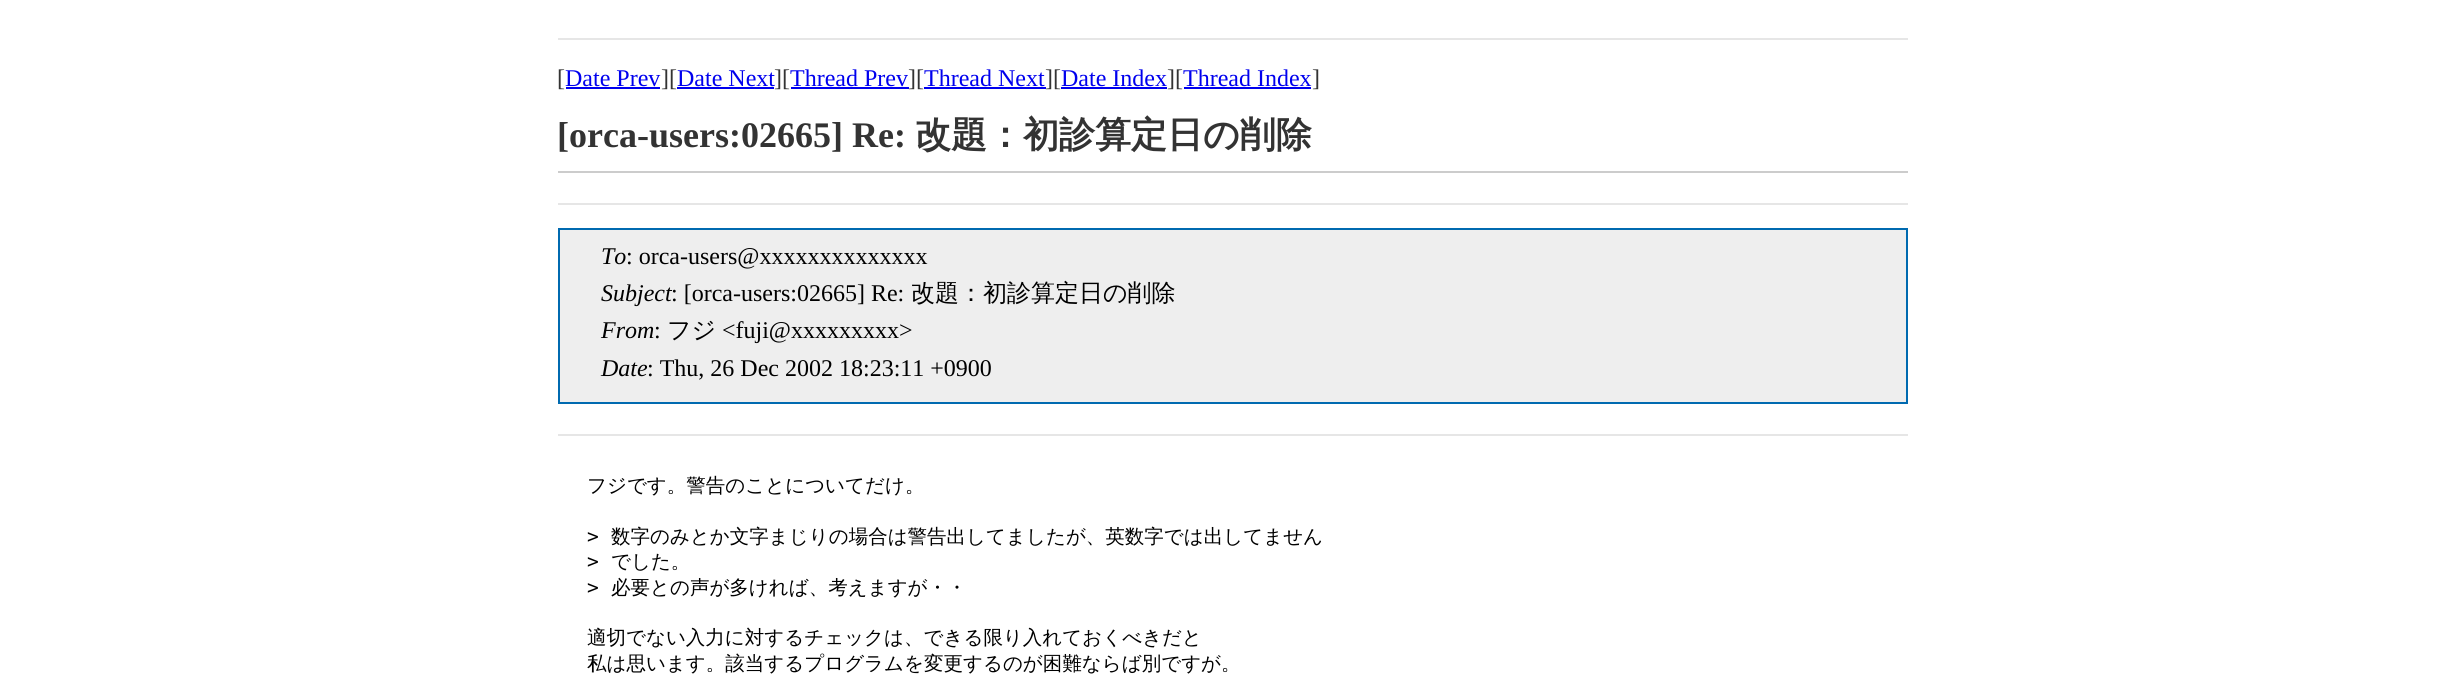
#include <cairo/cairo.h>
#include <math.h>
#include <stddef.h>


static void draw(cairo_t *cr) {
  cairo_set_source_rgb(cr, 1, 1, 1);
  cairo_paint(cr);
  cairo_set_source_rgb(cr, 230 / 255.0, 230 / 255.0, 230 / 255.0);
  cairo_rectangle(cr, 558, 38, 1350, 2);
  cairo_fill(cr);
  cairo_set_source_rgb(cr, 0, 0, 238 / 255.0);
  cairo_rectangle(cr, 566, 87, 94, 2);
  cairo_fill(cr);
  cairo_rectangle(cr, 677, 87, 97, 2);
  cairo_fill(cr);
  cairo_rectangle(cr, 791, 87, 118, 2);
  cairo_fill(cr);
  cairo_rectangle(cr, 924, 87, 122, 2);
  cairo_fill(cr);
  cairo_rectangle(cr, 1061, 87, 106, 2);
  cairo_fill(cr);
  cairo_rectangle(cr, 1184, 87, 127, 2);
  cairo_fill(cr);
  cairo_set_source_rgb(cr, 204 / 255.0, 204 / 255.0, 204 / 255.0);
  cairo_rectangle(cr, 558, 171, 1350, 2);
  cairo_fill(cr);
  cairo_set_source_rgb(cr, 230 / 255.0, 230 / 255.0, 230 / 255.0);
  cairo_rectangle(cr, 558, 203, 1350, 2);
  cairo_fill(cr);
  cairo_set_source_rgb(cr, 238 / 255.0, 238 / 255.0, 238 / 255.0);
  cairo_rectangle(cr, 559, 229, 1348, 174);
  cairo_fill_preserve(cr);
  cairo_set_source_rgb(cr, 0, 106 / 255.0, 176 / 255.0);
  cairo_stroke(cr);
  cairo_set_source_rgb(cr, 230 / 255.0, 230 / 255.0, 230 / 255.0);
  cairo_rectangle(cr, 558, 434, 1350, 2);
  cairo_fill(cr);
  cairo_select_font_face(cr, "Liberation Serif", CAIRO_FONT_SLANT_NORMAL, CAIRO_FONT_WEIGHT_NORMAL);
  cairo_set_font_size(cr, 24);
  cairo_set_source_rgb(cr, 51 / 255.0, 51 / 255.0, 51 / 255.0);
  cairo_move_to(cr, 557, 86);
  cairo_show_text(cr, "[");
  cairo_set_source_rgb(cr, 0, 0, 238 / 255.0);
  cairo_move_to(cr, 565, 86);
  cairo_show_text(cr, "Date Prev");
  cairo_set_source_rgb(cr, 51 / 255.0, 51 / 255.0, 51 / 255.0);
  cairo_move_to(cr, 661, 86);
  cairo_show_text(cr, "][");
  cairo_set_source_rgb(cr, 0, 0, 238 / 255.0);
  cairo_move_to(cr, 677, 86);
  cairo_show_text(cr, "Date Next");
  cairo_set_source_rgb(cr, 51 / 255.0, 51 / 255.0, 51 / 255.0);
  cairo_move_to(cr, 774, 86);
  cairo_show_text(cr, "][");
  cairo_set_source_rgb(cr, 0, 0, 238 / 255.0);
  cairo_move_to(cr, 790, 86);
  cairo_show_text(cr, "Thread Prev");
  cairo_set_source_rgb(cr, 51 / 255.0, 51 / 255.0, 51 / 255.0);
  cairo_move_to(cr, 908, 86);
  cairo_show_text(cr, "][");
  cairo_set_source_rgb(cr, 0, 0, 238 / 255.0);
  cairo_move_to(cr, 924, 86);
  cairo_show_text(cr, "Thread Next");
  cairo_set_source_rgb(cr, 51 / 255.0, 51 / 255.0, 51 / 255.0);
  cairo_move_to(cr, 1045, 86);
  cairo_show_text(cr, "][");
  cairo_set_source_rgb(cr, 0, 0, 238 / 255.0);
  cairo_move_to(cr, 1061, 86);
  cairo_show_text(cr, "Date Index");
  cairo_set_source_rgb(cr, 51 / 255.0, 51 / 255.0, 51 / 255.0);
  cairo_move_to(cr, 1167, 86);
  cairo_show_text(cr, "][");
  cairo_set_source_rgb(cr, 0, 0, 238 / 255.0);
  cairo_move_to(cr, 1183, 86);
  cairo_show_text(cr, "Thread Index");
  cairo_set_source_rgb(cr, 51 / 255.0, 51 / 255.0, 51 / 255.0);
  cairo_move_to(cr, 1312, 86);
  cairo_show_text(cr, "]");
  cairo_select_font_face(cr, "Liberation Serif", CAIRO_FONT_SLANT_NORMAL, CAIRO_FONT_WEIGHT_BOLD);
  cairo_set_font_size(cr, 36);
  cairo_move_to(cr, 557, 147);
  cairo_show_text(cr, "[orca-users:02665] Re:");
  cairo_select_font_face(cr, "WenQuanYi Zen Hei", CAIRO_FONT_SLANT_NORMAL, CAIRO_FONT_WEIGHT_BOLD);
  cairo_move_to(cr, 915, 147);
  cairo_show_text(cr, "改題：初診算定日の削除");
  cairo_select_font_face(cr, "Liberation Serif", CAIRO_FONT_SLANT_ITALIC, CAIRO_FONT_WEIGHT_NORMAL);
  cairo_set_font_size(cr, 24);
  cairo_set_source_rgb(cr, 0, 0, 0);
  cairo_move_to(cr, 601, 264);
  cairo_show_text(cr, "To");
  cairo_select_font_face(cr, "Liberation Serif", CAIRO_FONT_SLANT_NORMAL, CAIRO_FONT_WEIGHT_NORMAL);
  cairo_move_to(cr, 626, 264);
  cairo_show_text(cr, ": orca-users@xxxxxxxxxxxxxx");
  cairo_select_font_face(cr, "Liberation Serif", CAIRO_FONT_SLANT_ITALIC, CAIRO_FONT_WEIGHT_NORMAL);
  cairo_move_to(cr, 601, 301);
  cairo_show_text(cr, "Subject");
  cairo_select_font_face(cr, "Liberation Serif", CAIRO_FONT_SLANT_NORMAL, CAIRO_FONT_WEIGHT_NORMAL);
  cairo_move_to(cr, 671, 301);
  cairo_show_text(cr, ": [orca-users:02665] Re:");
  cairo_select_font_face(cr, "WenQuanYi Zen Hei Medium", CAIRO_FONT_SLANT_NORMAL, CAIRO_FONT_WEIGHT_NORMAL);
  cairo_move_to(cr, 911, 301);
  cairo_show_text(cr, "改題：初診算定日の削除");
  cairo_select_font_face(cr, "Liberation Serif", CAIRO_FONT_SLANT_ITALIC, CAIRO_FONT_WEIGHT_NORMAL);
  cairo_move_to(cr, 601, 338);
  cairo_show_text(cr, "From");
  cairo_select_font_face(cr, "Liberation Serif", CAIRO_FONT_SLANT_NORMAL, CAIRO_FONT_WEIGHT_NORMAL);
  cairo_move_to(cr, 654, 338);
  cairo_show_text(cr, ":");
  cairo_select_font_face(cr, "WenQuanYi Zen Hei Medium", CAIRO_FONT_SLANT_NORMAL, CAIRO_FONT_WEIGHT_NORMAL);
  cairo_move_to(cr, 667, 338);
  cairo_show_text(cr, "フジ");
  cairo_select_font_face(cr, "Liberation Serif", CAIRO_FONT_SLANT_NORMAL, CAIRO_FONT_WEIGHT_NORMAL);
  cairo_move_to(cr, 722, 338);
  cairo_show_text(cr, "<fuji@xxxxxxxxx>");
  cairo_select_font_face(cr, "Liberation Serif", CAIRO_FONT_SLANT_ITALIC, CAIRO_FONT_WEIGHT_NORMAL);
  cairo_move_to(cr, 601, 376);
  cairo_show_text(cr, "Date");
  cairo_select_font_face(cr, "Liberation Serif", CAIRO_FONT_SLANT_NORMAL, CAIRO_FONT_WEIGHT_NORMAL);
  cairo_move_to(cr, 647, 376);
  cairo_show_text(cr, ": Thu, 26 Dec 2002 18:23:11 +0900");
  cairo_select_font_face(cr, "WenQuanYi Zen Hei Medium", CAIRO_FONT_SLANT_NORMAL, CAIRO_FONT_WEIGHT_NORMAL);
  cairo_set_font_size(cr, 19.5);
  cairo_move_to(cr, 587, 492);
  cairo_show_text(cr, "フジです。警告のことについてだけ。");
  cairo_select_font_face(cr, "DejaVu Sans Mono", CAIRO_FONT_SLANT_NORMAL, CAIRO_FONT_WEIGHT_NORMAL);
  cairo_move_to(cr, 587, 543);
  cairo_show_text(cr, ">");
  cairo_select_font_face(cr, "WenQuanYi Zen Hei Medium", CAIRO_FONT_SLANT_NORMAL, CAIRO_FONT_WEIGHT_NORMAL);
  cairo_move_to(cr, 611, 543);
  cairo_show_text(cr, "数字のみとか文字まじりの場合は警告出してましたが、英数字では出してません");
  cairo_select_font_face(cr, "DejaVu Sans Mono", CAIRO_FONT_SLANT_NORMAL, CAIRO_FONT_WEIGHT_NORMAL);
  cairo_move_to(cr, 587, 568);
  cairo_show_text(cr, ">");
  cairo_select_font_face(cr, "WenQuanYi Zen Hei Medium", CAIRO_FONT_SLANT_NORMAL, CAIRO_FONT_WEIGHT_NORMAL);
  cairo_move_to(cr, 611, 568);
  cairo_show_text(cr, "でした。");
  cairo_select_font_face(cr, "DejaVu Sans Mono", CAIRO_FONT_SLANT_NORMAL, CAIRO_FONT_WEIGHT_NORMAL);
  cairo_move_to(cr, 587, 594);
  cairo_show_text(cr, ">");
  cairo_select_font_face(cr, "WenQuanYi Zen Hei Medium", CAIRO_FONT_SLANT_NORMAL, CAIRO_FONT_WEIGHT_NORMAL);
  cairo_move_to(cr, 611, 594);
  cairo_show_text(cr, "必要との声が多ければ、考えますが・・");
  cairo_move_to(cr, 587, 644);
  cairo_show_text(cr, "適切でない入力に対するチェックは、できる限り入れておくべきだと");
  cairo_move_to(cr, 587, 670);
  cairo_show_text(cr, "私は思います。該当するプログラムを変更するのが困難ならば別ですが。");
}

int main(void) {
  cairo_surface_t *surface = cairo_image_surface_create(CAIRO_FORMAT_RGB24, 2464, 687);
  cairo_t *cr = cairo_create(surface);
  cairo_font_options_t *options = cairo_font_options_create();
  cairo_font_options_set_hint_metrics(options, CAIRO_HINT_METRICS_OFF);
  cairo_font_options_set_hint_style(options, CAIRO_HINT_STYLE_NONE);
  cairo_set_font_options(cr, options);
  cairo_set_miter_limit(cr, 4);
  draw(cr);
  cairo_surface_write_to_png(surface, "out.png");
  cairo_font_options_destroy(options);
  cairo_destroy(cr);
  cairo_surface_destroy(surface);
  return 0;
}
